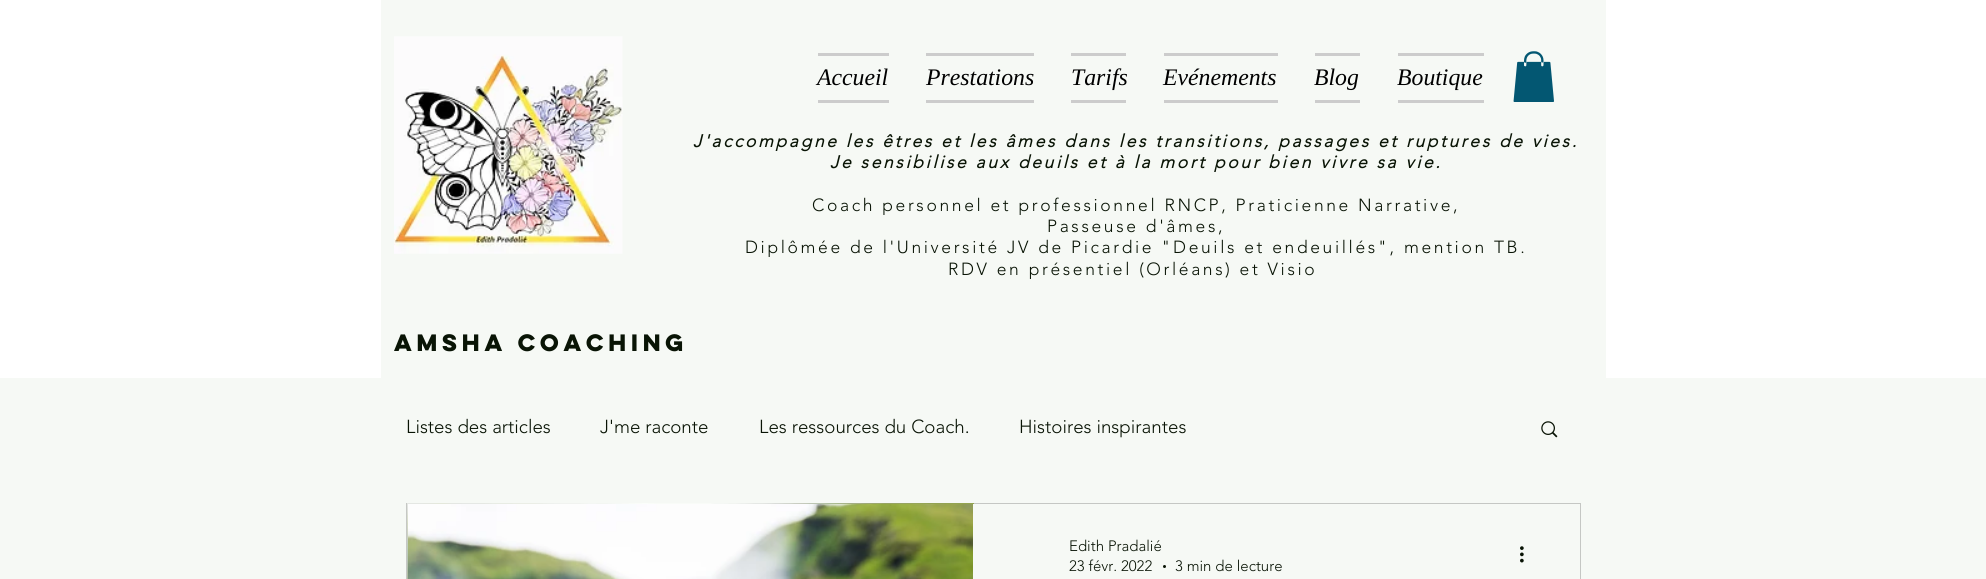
#include <cairo/cairo.h>
#include <math.h>
#include <stddef.h>


static void draw_spaced(cairo_t *cr, double x, double y, const char *s, double letter, double word) {
  cairo_move_to(cr, x, y);
  while (*s) {
    char ch[5] = {0};
    int n = 0;
    do ch[n++] = *s++; while ((*s & 0xC0) == 0x80);
    cairo_show_text(cr, ch);
    cairo_rel_move_to(cr, letter + word * (*ch == ' '), 0);
  }
}

static void draw_image(cairo_t *cr, const char *path, double x, double y, double w, double h) {
  cairo_surface_t *image = cairo_image_surface_create_from_png(path);
  cairo_save(cr);
  cairo_set_source_surface(cr, image, x, y);
  cairo_rectangle(cr, x, y, w, h);
  cairo_fill(cr);
  cairo_restore(cr);
  cairo_surface_destroy(image);
}

static void draw(cairo_t *cr) {
  cairo_set_source_rgb(cr, 246 / 255.0, 249 / 255.0, 245 / 255.0);
  cairo_paint(cr);
  cairo_set_source_rgb(cr, 1, 1, 1);
  cairo_rectangle(cr, 0, 0, 1986, 378);
  cairo_fill(cr);
  cairo_set_source_rgb(cr, 246 / 255.0, 249 / 255.0, 245 / 255.0);
  cairo_rectangle(cr, 381, 0, 1225, 378);
  cairo_fill(cr);
  draw_image(cr, "images/1.png", 394, 36, 229, 218);
  cairo_set_source_rgb(cr, 204 / 255.0, 204 / 255.0, 204 / 255.0);
  cairo_rectangle(cr, 818, 53, 71, 3);
  cairo_fill(cr);
  cairo_rectangle(cr, 818, 100, 71, 3);
  cairo_fill(cr);
  cairo_rectangle(cr, 926, 53, 108, 3);
  cairo_fill(cr);
  cairo_rectangle(cr, 926, 100, 108, 3);
  cairo_fill(cr);
  cairo_rectangle(cr, 1071, 53, 55, 3);
  cairo_fill(cr);
  cairo_rectangle(cr, 1071, 100, 55, 3);
  cairo_fill(cr);
  cairo_rectangle(cr, 1164, 53, 114, 3);
  cairo_fill(cr);
  cairo_rectangle(cr, 1164, 100, 114, 3);
  cairo_fill(cr);
  cairo_rectangle(cr, 1315, 53, 45, 3);
  cairo_fill(cr);
  cairo_rectangle(cr, 1315, 100, 45, 3);
  cairo_fill(cr);
  cairo_rectangle(cr, 1398, 53, 86, 3);
  cairo_fill(cr);
  cairo_rectangle(cr, 1398, 100, 86, 3);
  cairo_fill(cr);
  draw_image(cr, "images/2.png", 1513, 51, 41, 51);
  draw_image(cr, "images/3.png", 1541, 421, 17, 17);
  cairo_rectangle(cr, 406.5, 503.5, 1174, 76);
  cairo_set_source_rgb(cr, 197 / 255.0, 199 / 255.0, 196 / 255.0);
  cairo_set_line_width(cr, 1);
  cairo_stroke(cr);
  draw_image(cr, "images/4.png", 407, 503, 567, 76);
  draw_image(cr, "images/5.png", 408, 504, 565, 75);
  cairo_set_source_rgb(cr, 246 / 255.0, 249 / 255.0, 245 / 255.0);
  cairo_rectangle(cr, 973, 504, 1, 75);
  cairo_fill(cr);
  cairo_set_source_rgb(cr, 9 / 255.0, 20 / 255.0, 5 / 255.0);
  cairo_arc(cr, 1164.5, 566.5, 1.5, 0, 2 * M_PI);
  cairo_fill(cr);
  draw_image(cr, "images/6.png", 1520, 546, 4, 17);
  cairo_select_font_face(cr, "Liberation Serif", CAIRO_FONT_SLANT_ITALIC, CAIRO_FONT_WEIGHT_NORMAL);
  cairo_set_font_size(cr, 23.75);
  cairo_set_source_rgb(cr, 0, 0, 0);
  cairo_move_to(cr, 817, 85);
  cairo_show_text(cr, "Accueil");
  cairo_move_to(cr, 926, 85);
  cairo_show_text(cr, "Prestations");
  cairo_move_to(cr, 1071, 85);
  cairo_show_text(cr, "Tarifs");
  cairo_move_to(cr, 1163, 85);
  cairo_show_text(cr, "Evénements");
  cairo_move_to(cr, 1314, 85);
  cairo_show_text(cr, "Blog");
  cairo_move_to(cr, 1397, 85);
  cairo_show_text(cr, "Boutique");
  cairo_select_font_face(cr, "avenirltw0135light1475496", CAIRO_FONT_SLANT_ITALIC, CAIRO_FONT_WEIGHT_BOLD);
  cairo_set_font_size(cr, 17.5);
  cairo_set_source_rgb(cr, 9 / 255.0, 20 / 255.0, 5 / 255.0);
  draw_spaced(cr, 693, 147, "J'accompagne les êtres et les âmes dans les transitions, passages et ruptures de vies.", 2.62, 0);
  draw_spaced(cr, 830, 168, "Je sensibilise aux deuils et à la mort pour bien vivre sa vie.", 2.62, 0);
  cairo_select_font_face(cr, "avenirltw0135light1475496 Light", CAIRO_FONT_SLANT_NORMAL, CAIRO_FONT_WEIGHT_NORMAL);
  draw_spaced(cr, 812, 211, "Coach personnel et professionnel RNCP, Praticienne Narrative,", 2.62, 0);
  draw_spaced(cr, 1047, 232, "Passeuse d'âmes,", 2.62, 0);
  draw_spaced(cr, 745, 253, "Diplômée de l'Université JV de Picardie \"Deuils et endeuillés\", mention TB.", 2.62, 0);
  draw_spaced(cr, 948, 275, "RDV en présentiel (Orléans) et Visio", 2.62, 0);
  cairo_select_font_face(cr, "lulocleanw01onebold", CAIRO_FONT_SLANT_NORMAL, CAIRO_FONT_WEIGHT_BOLD);
  cairo_set_font_size(cr, 21.25);
  cairo_move_to(cr, 394, 351);
  cairo_show_text(cr, "Amsha Coaching");
  cairo_select_font_face(cr, "avenirltw0135light1475496 Light", CAIRO_FONT_SLANT_NORMAL, CAIRO_FONT_WEIGHT_NORMAL);
  cairo_set_font_size(cr, 18.75);
  cairo_move_to(cr, 406, 433);
  cairo_show_text(cr, "Listes des articles");
  cairo_move_to(cr, 600, 433);
  cairo_show_text(cr, "J'me raconte");
  cairo_move_to(cr, 759, 433);
  cairo_show_text(cr, "Les ressources du Coach.");
  cairo_move_to(cr, 1019, 433);
  cairo_show_text(cr, "Histoires inspirantes");
  cairo_set_font_size(cr, 15);
  cairo_move_to(cr, 1069, 551);
  cairo_show_text(cr, "Edith Pradalié");
  cairo_move_to(cr, 1069, 571);
  cairo_show_text(cr, "23 févr. 2022");
  cairo_move_to(cr, 1175, 571);
  cairo_show_text(cr, "3 min de lecture");
}

int main(void) {
  cairo_surface_t *surface = cairo_image_surface_create(CAIRO_FORMAT_RGB24, 1986, 579);
  cairo_t *cr = cairo_create(surface);
  cairo_font_options_t *options = cairo_font_options_create();
  cairo_font_options_set_hint_metrics(options, CAIRO_HINT_METRICS_OFF);
  cairo_font_options_set_hint_style(options, CAIRO_HINT_STYLE_NONE);
  cairo_set_font_options(cr, options);
  cairo_set_miter_limit(cr, 4);
  draw(cr);
  cairo_surface_write_to_png(surface, "out.png");
  cairo_font_options_destroy(options);
  cairo_destroy(cr);
  cairo_surface_destroy(surface);
  return 0;
}
